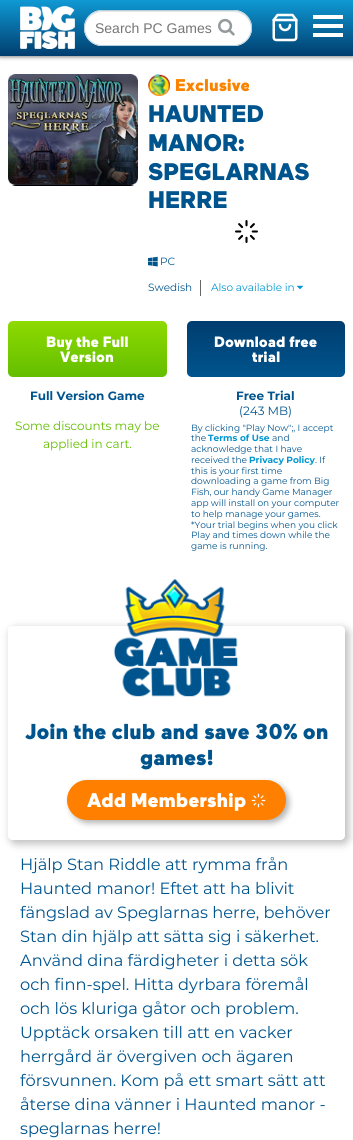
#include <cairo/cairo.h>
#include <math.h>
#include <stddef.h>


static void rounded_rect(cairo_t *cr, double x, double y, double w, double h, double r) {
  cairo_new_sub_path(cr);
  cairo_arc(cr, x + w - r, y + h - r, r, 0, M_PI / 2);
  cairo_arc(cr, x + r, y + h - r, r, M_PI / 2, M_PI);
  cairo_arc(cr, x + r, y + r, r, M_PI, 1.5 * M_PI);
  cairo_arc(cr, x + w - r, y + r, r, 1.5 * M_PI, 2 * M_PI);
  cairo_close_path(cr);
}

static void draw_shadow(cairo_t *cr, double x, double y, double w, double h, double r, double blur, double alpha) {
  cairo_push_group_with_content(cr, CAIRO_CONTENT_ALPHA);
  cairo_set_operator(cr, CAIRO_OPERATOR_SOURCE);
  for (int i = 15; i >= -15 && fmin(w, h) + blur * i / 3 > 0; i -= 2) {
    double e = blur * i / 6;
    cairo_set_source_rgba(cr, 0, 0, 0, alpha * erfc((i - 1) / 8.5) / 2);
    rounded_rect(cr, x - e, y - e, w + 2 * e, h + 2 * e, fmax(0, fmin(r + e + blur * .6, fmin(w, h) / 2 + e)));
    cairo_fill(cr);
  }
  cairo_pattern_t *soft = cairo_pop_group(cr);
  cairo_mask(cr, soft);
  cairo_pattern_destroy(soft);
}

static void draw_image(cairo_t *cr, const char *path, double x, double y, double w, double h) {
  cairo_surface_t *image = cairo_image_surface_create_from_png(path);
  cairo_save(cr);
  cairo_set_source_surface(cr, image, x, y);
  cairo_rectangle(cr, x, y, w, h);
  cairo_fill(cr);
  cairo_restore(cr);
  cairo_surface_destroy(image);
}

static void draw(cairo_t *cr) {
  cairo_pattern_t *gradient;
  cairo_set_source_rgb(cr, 1, 1, 1);
  cairo_paint(cr);
  cairo_set_source_rgb(cr, 0, 0, 0);
  draw_shadow(cr, 0, 1, 353, 56, 0, 2, 0.5);
  gradient = cairo_pattern_create_linear(177, 0, 177, 56);
  cairo_pattern_add_color_stop_rgba(gradient, 0, 15 / 255.0, 153 / 255.0, 212 / 255.0, 1);
  cairo_pattern_add_color_stop_rgba(gradient, 1, 0, 61 / 255.0, 110 / 255.0, 1);
  cairo_set_source(cr, gradient);
  cairo_pattern_destroy(gradient);
  cairo_rectangle(cr, 0, 0, 353, 56);
  cairo_fill(cr);
  draw_image(cr, "images/1.png", 20, 6, 55, 43);
  cairo_set_source_rgb(cr, 1, 1, 1);
  rounded_rect(cr, 84, 10, 168, 36, 18);
  cairo_fill(cr);
  cairo_set_source_rgb(cr, 231 / 255.0, 231 / 255.0, 231 / 255.0);
  cairo_new_path(cr);
  cairo_move_to(cr, 102, 12);
  cairo_line_to(cr, 234, 12);
  cairo_curve_to(cr, 243, 12, 251, 20, 251, 29);
  cairo_line_to(cr, 251, 28);
  cairo_curve_to(cr, 251, 19, 243, 11, 234, 11);
  cairo_line_to(cr, 102, 11);
  cairo_curve_to(cr, 93, 11, 85, 19, 85, 28);
  cairo_line_to(cr, 85, 29);
  cairo_curve_to(cr, 85, 20, 93, 12, 102, 12);
  cairo_close_path(cr);
  cairo_fill(cr);
  rounded_rect(cr, 84.5, 10.5, 167, 35, 17.5);
  cairo_set_source_rgb(cr, 179 / 255.0, 206 / 255.0, 220 / 255.0);
  cairo_set_line_width(cr, 1);
  cairo_stroke(cr);
  draw_image(cr, "images/2.png", 218, 18, 17, 18);
  cairo_set_source_rgb(cr, 1, 1, 1);
  cairo_rectangle(cr, 313, 15, 30, 4);
  cairo_fill(cr);
  cairo_rectangle(cr, 313, 24, 30, 4);
  cairo_fill(cr);
  cairo_rectangle(cr, 313, 33, 30, 4);
  cairo_fill(cr);
  draw_image(cr, "images/3.png", 272, 13, 26, 29);
  cairo_set_source_rgb(cr, 0, 0, 0);
  rounded_rect(cr, 8, 74, 130, 112, 8);
  cairo_fill(cr);
  draw_image(cr, "images/4.png", 8, 74, 130, 111);
  draw_image(cr, "images/5.png", 148, 74, 22, 22);
  draw_image(cr, "images/6.png", 235, 220, 23, 23);
  draw_image(cr, "images/7.png", 148, 256, 10, 11);
  cairo_set_source_rgb(cr, 102 / 255.0, 102 / 255.0, 102 / 255.0);
  cairo_rectangle(cr, 200, 280, 1, 16);
  cairo_fill(cr);
  draw_image(cr, "images/8.png", 297, 285, 6, 5);
  gradient = cairo_pattern_create_linear(88, 321, 88, 377);
  cairo_pattern_add_color_stop_rgba(gradient, 0, 142 / 255.0, 218 / 255.0, 0, 1);
  cairo_pattern_add_color_stop_rgba(gradient, 1, 99 / 255.0, 190 / 255.0, 0, 1);
  cairo_set_source(cr, gradient);
  cairo_pattern_destroy(gradient);
  rounded_rect(cr, 8, 321, 159, 56, 5);
  cairo_fill(cr);
  gradient = cairo_pattern_create_linear(266, 321, 266, 377);
  cairo_pattern_add_color_stop_rgba(gradient, 0, 0, 61 / 255.0, 110 / 255.0, 1);
  cairo_pattern_add_color_stop_rgba(gradient, 1, 0, 84 / 255.0, 142 / 255.0, 1);
  cairo_set_source(cr, gradient);
  cairo_pattern_destroy(gradient);
  rounded_rect(cr, 187, 321, 158, 56, 5);
  cairo_fill(cr);
  cairo_save(cr);
  cairo_set_fill_rule(cr, CAIRO_FILL_RULE_EVEN_ODD);
  cairo_new_path(cr);
  cairo_move_to(cr, 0, 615);
  cairo_line_to(cr, 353, 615);
  cairo_line_to(cr, 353, 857);
  cairo_line_to(cr, 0, 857);
  cairo_close_path(cr);
  cairo_move_to(cr, 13, 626);
  cairo_line_to(cr, 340, 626);
  cairo_curve_to(cr, 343, 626, 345, 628, 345, 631);
  cairo_line_to(cr, 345, 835);
  cairo_curve_to(cr, 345, 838, 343, 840, 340, 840);
  cairo_line_to(cr, 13, 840);
  cairo_curve_to(cr, 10, 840, 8, 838, 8, 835);
  cairo_line_to(cr, 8, 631);
  cairo_curve_to(cr, 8, 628, 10, 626, 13, 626);
  cairo_close_path(cr);
  cairo_clip(cr);
  cairo_set_source_rgb(cr, 0, 0, 0);
  draw_shadow(cr, 10, 628, 339, 216, 6, 4, 0.25);
  cairo_restore(cr);
  draw_image(cr, "images/9.png", 113, 579, 125, 118);
  cairo_set_source_rgb(cr, 0, 0, 0);
  draw_shadow(cr, 70, 783, 219, 40, 20, 3, 0.3);
  cairo_set_source_rgb(cr, 1, 128 / 255.0, 0);
  rounded_rect(cr, 67, 780, 219, 40, 20);
  cairo_fill(cr);
  draw_image(cr, "images/10.png", 251, 793, 15, 15);
  cairo_select_font_face(cr, "Liberation Sans", CAIRO_FONT_SLANT_NORMAL, CAIRO_FONT_WEIGHT_NORMAL);
  cairo_set_font_size(cr, 14);
  cairo_set_source_rgb(cr, 117 / 255.0, 117 / 255.0, 117 / 255.0);
  cairo_move_to(cr, 95, 33);
  cairo_show_text(cr, "Search PC Games");
  cairo_select_font_face(cr, "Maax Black", CAIRO_FONT_SLANT_NORMAL, CAIRO_FONT_WEIGHT_NORMAL);
  cairo_set_font_size(cr, 17);
  cairo_set_source_rgb(cr, 250 / 255.0, 131 / 255.0, 0);
  cairo_move_to(cr, 175, 91);
  cairo_show_text(cr, "Exclusive");
  cairo_set_font_size(cr, 24);
  cairo_set_source_rgb(cr, 0, 84 / 255.0, 142 / 255.0);
  cairo_move_to(cr, 148, 122);
  cairo_show_text(cr, "HAUNTED");
  cairo_move_to(cr, 148, 151);
  cairo_show_text(cr, "MANOR:");
  cairo_move_to(cr, 148, 180);
  cairo_show_text(cr, "SPEGLARNAS");
  cairo_move_to(cr, 148, 208);
  cairo_show_text(cr, "HERRE");
  cairo_select_font_face(cr, "Montserrat", CAIRO_FONT_SLANT_NORMAL, CAIRO_FONT_WEIGHT_NORMAL);
  cairo_set_font_size(cr, 10.5);
  cairo_move_to(cr, 160, 265);
  cairo_show_text(cr, "PC");
  cairo_move_to(cr, 148, 291);
  cairo_show_text(cr, "Swedish");
  cairo_set_source_rgb(cr, 0, 151 / 255.0, 208 / 255.0);
  cairo_move_to(cr, 211, 291);
  cairo_show_text(cr, "Also available in");
  cairo_select_font_face(cr, "Maax Black", CAIRO_FONT_SLANT_NORMAL, CAIRO_FONT_WEIGHT_NORMAL);
  cairo_set_font_size(cr, 15);
  cairo_set_source_rgb(cr, 1, 1, 1);
  cairo_move_to(cr, 46, 347);
  cairo_show_text(cr, "Buy the Full");
  cairo_move_to(cr, 60, 362);
  cairo_show_text(cr, "Version");
  cairo_select_font_face(cr, "Montserrat", CAIRO_FONT_SLANT_NORMAL, CAIRO_FONT_WEIGHT_BOLD);
  cairo_set_font_size(cr, 12);
  cairo_set_source_rgb(cr, 0, 84 / 255.0, 142 / 255.0);
  cairo_move_to(cr, 30, 400);
  cairo_show_text(cr, "Full Version Game");
  cairo_select_font_face(cr, "Montserrat", CAIRO_FONT_SLANT_NORMAL, CAIRO_FONT_WEIGHT_NORMAL);
  cairo_set_source_rgb(cr, 99 / 255.0, 190 / 255.0, 0);
  cairo_move_to(cr, 15, 430);
  cairo_show_text(cr, "Some discounts may be");
  cairo_move_to(cr, 43, 448);
  cairo_show_text(cr, "applied in cart.");
  cairo_select_font_face(cr, "Maax Black", CAIRO_FONT_SLANT_NORMAL, CAIRO_FONT_WEIGHT_NORMAL);
  cairo_set_font_size(cr, 15);
  cairo_set_source_rgb(cr, 1, 1, 1);
  cairo_move_to(cr, 214, 347);
  cairo_show_text(cr, "Download free");
  cairo_move_to(cr, 252, 362);
  cairo_show_text(cr, "trial");
  cairo_select_font_face(cr, "Montserrat", CAIRO_FONT_SLANT_NORMAL, CAIRO_FONT_WEIGHT_BOLD);
  cairo_set_font_size(cr, 12);
  cairo_set_source_rgb(cr, 0, 84 / 255.0, 142 / 255.0);
  cairo_move_to(cr, 236, 400);
  cairo_show_text(cr, "Free Trial");
  cairo_select_font_face(cr, "Montserrat", CAIRO_FONT_SLANT_NORMAL, CAIRO_FONT_WEIGHT_NORMAL);
  cairo_move_to(cr, 239, 415);
  cairo_show_text(cr, "(243 MB)");
  cairo_set_font_size(cr, 9);
  cairo_move_to(cr, 191, 431);
  cairo_show_text(cr, "By clicking \"Play Now\";, I accept");
  cairo_move_to(cr, 191, 441);
  cairo_show_text(cr, "the");
  cairo_select_font_face(cr, "Montserrat", CAIRO_FONT_SLANT_NORMAL, CAIRO_FONT_WEIGHT_BOLD);
  cairo_set_source_rgb(cr, 0, 151 / 255.0, 208 / 255.0);
  cairo_move_to(cr, 208, 441);
  cairo_show_text(cr, "Terms of Use");
  cairo_select_font_face(cr, "Montserrat", CAIRO_FONT_SLANT_NORMAL, CAIRO_FONT_WEIGHT_NORMAL);
  cairo_set_source_rgb(cr, 0, 84 / 255.0, 142 / 255.0);
  cairo_move_to(cr, 272, 441);
  cairo_show_text(cr, "and");
  cairo_move_to(cr, 191, 452);
  cairo_show_text(cr, "acknowledge that I have");
  cairo_move_to(cr, 191, 463);
  cairo_show_text(cr, "received the");
  cairo_select_font_face(cr, "Montserrat", CAIRO_FONT_SLANT_NORMAL, CAIRO_FONT_WEIGHT_BOLD);
  cairo_set_source_rgb(cr, 0, 151 / 255.0, 208 / 255.0);
  cairo_move_to(cr, 249, 463);
  cairo_show_text(cr, "Privacy Policy");
  cairo_select_font_face(cr, "Montserrat", CAIRO_FONT_SLANT_NORMAL, CAIRO_FONT_WEIGHT_NORMAL);
  cairo_set_source_rgb(cr, 0, 84 / 255.0, 142 / 255.0);
  cairo_move_to(cr, 315, 463);
  cairo_show_text(cr, ". If");
  cairo_move_to(cr, 191, 474);
  cairo_show_text(cr, "this is your first time");
  cairo_move_to(cr, 191, 484);
  cairo_show_text(cr, "downloading a game from Big");
  cairo_move_to(cr, 191, 495);
  cairo_show_text(cr, "Fish, our handy Game Manager");
  cairo_move_to(cr, 191, 506);
  cairo_show_text(cr, "app will install on your computer");
  cairo_move_to(cr, 191, 517);
  cairo_show_text(cr, "to help manage your games.");
  cairo_move_to(cr, 191, 528);
  cairo_show_text(cr, "*Your trial begins when you click");
  cairo_move_to(cr, 191, 538);
  cairo_show_text(cr, "Play and times down while the");
  cairo_move_to(cr, 191, 549);
  cairo_show_text(cr, "game is running.");
  cairo_select_font_face(cr, "Maax Black", CAIRO_FONT_SLANT_NORMAL, CAIRO_FONT_WEIGHT_NORMAL);
  cairo_set_font_size(cr, 21.6);
  cairo_move_to(cr, 25, 739);
  cairo_show_text(cr, "Join the club and save 30% on");
  cairo_move_to(cr, 140, 765);
  cairo_show_text(cr, "games!");
  cairo_set_font_size(cr, 19.75);
  cairo_set_source_rgb(cr, 1, 1, 1);
  cairo_move_to(cr, 87, 807);
  cairo_show_text(cr, "Add Membership");
  cairo_select_font_face(cr, "Montserrat", CAIRO_FONT_SLANT_NORMAL, CAIRO_FONT_WEIGHT_NORMAL);
  cairo_set_font_size(cr, 16.25);
  cairo_set_source_rgb(cr, 0, 84 / 255.0, 142 / 255.0);
  cairo_move_to(cr, 20, 870);
  cairo_show_text(cr, "Hjälp Stan Riddle att rymma från");
  cairo_move_to(cr, 20, 894);
  cairo_show_text(cr, "Haunted manor! Eftet att ha blivit");
  cairo_move_to(cr, 20, 918);
  cairo_show_text(cr, "fängslad av Speglarnas herre, behöver");
  cairo_move_to(cr, 20, 942);
  cairo_show_text(cr, "Stan din hjälp att sätta sig i säkerhet.");
  cairo_move_to(cr, 20, 966);
  cairo_show_text(cr, "Använd dina färdigheter i detta sök");
  cairo_move_to(cr, 20, 990);
  cairo_show_text(cr, "och finn-spel. Hitta dyrbara föremål");
  cairo_move_to(cr, 20, 1014);
  cairo_show_text(cr, "och lös kluriga gåtor och problem.");
  cairo_move_to(cr, 20, 1038);
  cairo_show_text(cr, "Upptäck orsaken till att en vacker");
  cairo_move_to(cr, 20, 1062);
  cairo_show_text(cr, "herrgård är övergiven och ägaren");
  cairo_move_to(cr, 20, 1086);
  cairo_show_text(cr, "försvunnen. Kom på ett smart sätt att");
  cairo_move_to(cr, 20, 1110);
  cairo_show_text(cr, "återse dina vänner i Haunted manor -");
  cairo_move_to(cr, 20, 1134);
  cairo_show_text(cr, "speglarnas herre!");
}

int main(void) {
  cairo_surface_t *surface = cairo_image_surface_create(CAIRO_FORMAT_RGB24, 353, 1140);
  cairo_t *cr = cairo_create(surface);
  cairo_font_options_t *options = cairo_font_options_create();
  cairo_font_options_set_hint_metrics(options, CAIRO_HINT_METRICS_OFF);
  cairo_font_options_set_hint_style(options, CAIRO_HINT_STYLE_NONE);
  cairo_set_font_options(cr, options);
  cairo_set_miter_limit(cr, 4);
  draw(cr);
  cairo_surface_write_to_png(surface, "out.png");
  cairo_font_options_destroy(options);
  cairo_destroy(cr);
  cairo_surface_destroy(surface);
  return 0;
}
